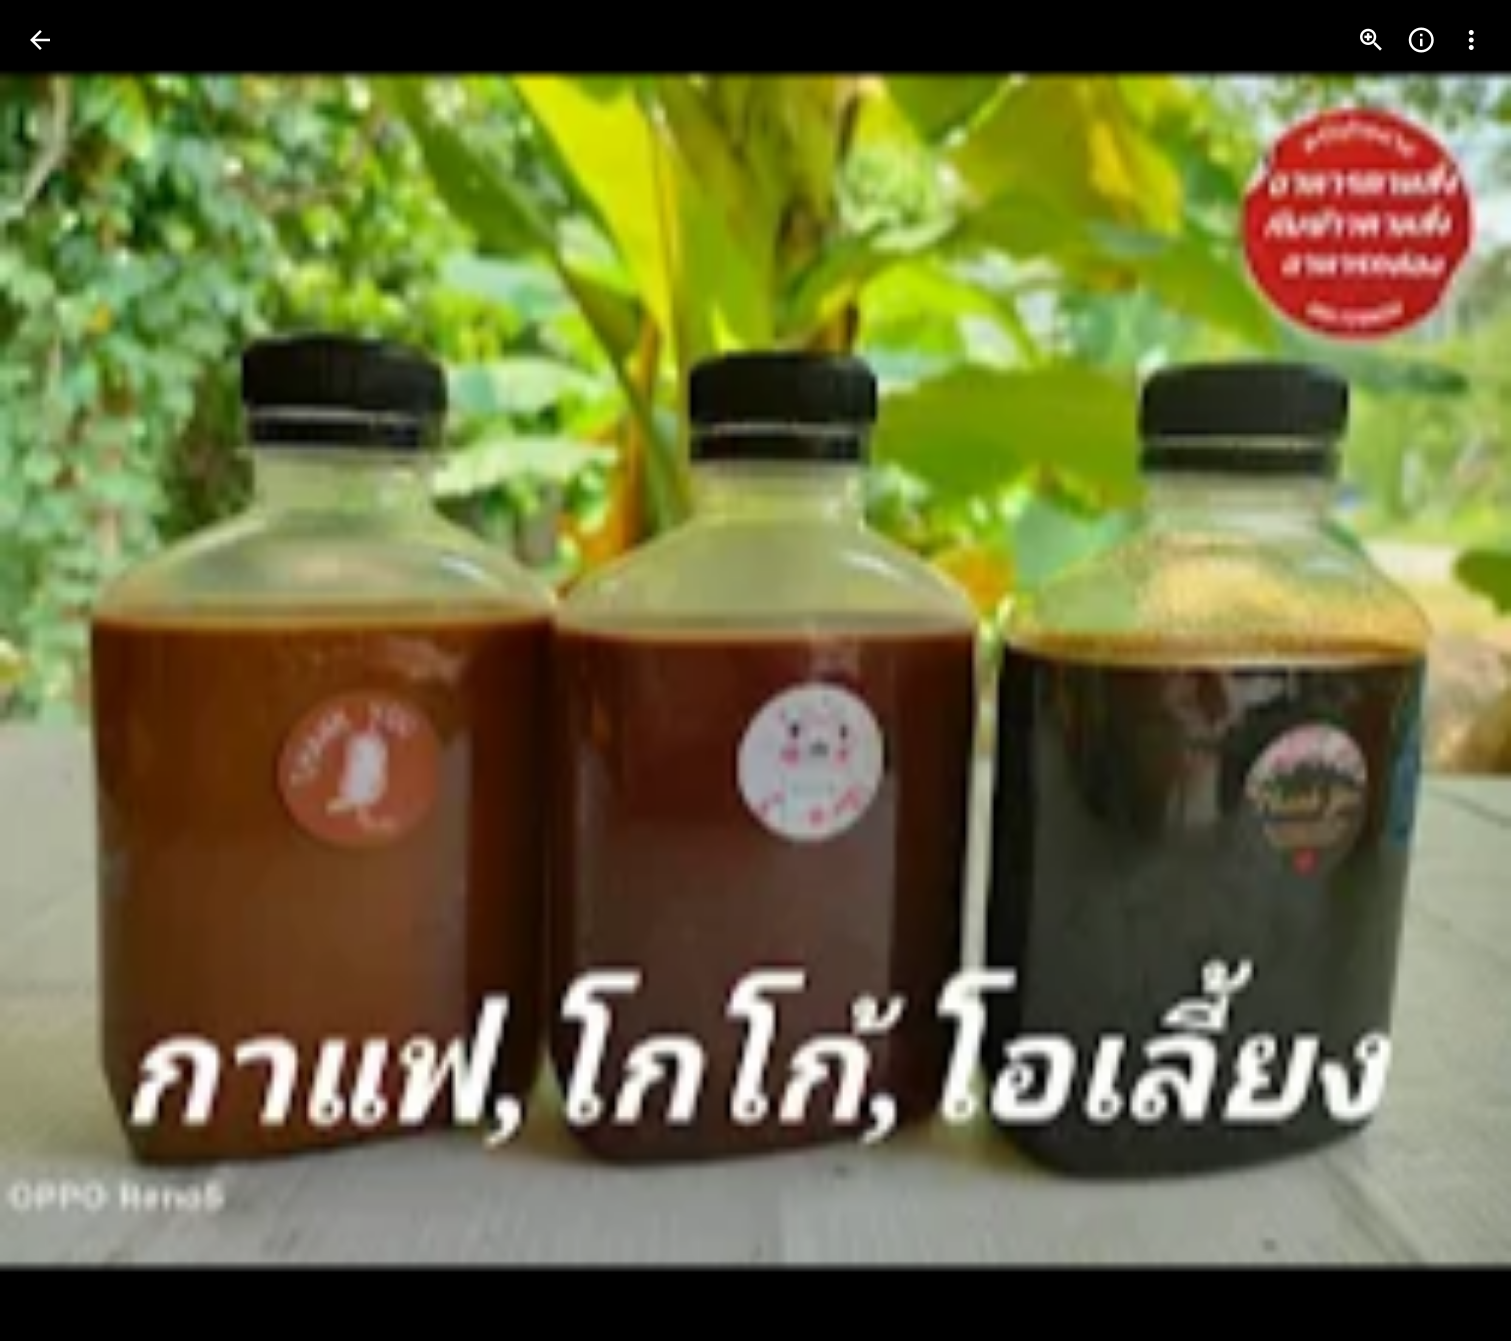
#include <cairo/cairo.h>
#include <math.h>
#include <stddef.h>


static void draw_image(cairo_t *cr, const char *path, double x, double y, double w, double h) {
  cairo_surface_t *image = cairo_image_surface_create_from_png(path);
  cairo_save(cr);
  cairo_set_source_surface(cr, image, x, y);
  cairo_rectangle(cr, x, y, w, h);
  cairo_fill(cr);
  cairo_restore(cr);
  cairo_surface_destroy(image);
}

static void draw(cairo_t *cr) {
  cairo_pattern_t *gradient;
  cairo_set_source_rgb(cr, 0, 0, 0);
  cairo_paint(cr);
  draw_image(cr, "images/5.png", 0, 70, 1511, 1202);
  gradient = cairo_pattern_create_linear(756, 0, 756, 80);
  cairo_pattern_add_color_stop_rgba(gradient, 0, 0, 0, 0, 0.6);
  cairo_pattern_add_color_stop_rgba(gradient, 1, 0, 0, 0, 0);
  cairo_set_source(cr, gradient);
  cairo_pattern_destroy(gradient);
  cairo_rectangle(cr, 54, 71, 1457, 6);
  cairo_fill(cr);
  draw_image(cr, "images/1.png", 30, 30, 20, 20);
  draw_image(cr, "images/2.png", 1360, 28, 22, 23);
  draw_image(cr, "images/3.png", 1408, 27, 26, 26);
  draw_image(cr, "images/4.png", 1468, 30, 6, 20);
}

int main(void) {
  cairo_surface_t *surface = cairo_image_surface_create(CAIRO_FORMAT_RGB24, 1511, 1341);
  cairo_t *cr = cairo_create(surface);
  cairo_font_options_t *options = cairo_font_options_create();
  cairo_font_options_set_hint_metrics(options, CAIRO_HINT_METRICS_OFF);
  cairo_font_options_set_hint_style(options, CAIRO_HINT_STYLE_NONE);
  cairo_set_font_options(cr, options);
  cairo_set_miter_limit(cr, 4);
  draw(cr);
  cairo_surface_write_to_png(surface, "out.png");
  cairo_font_options_destroy(options);
  cairo_destroy(cr);
  cairo_surface_destroy(surface);
  return 0;
}
